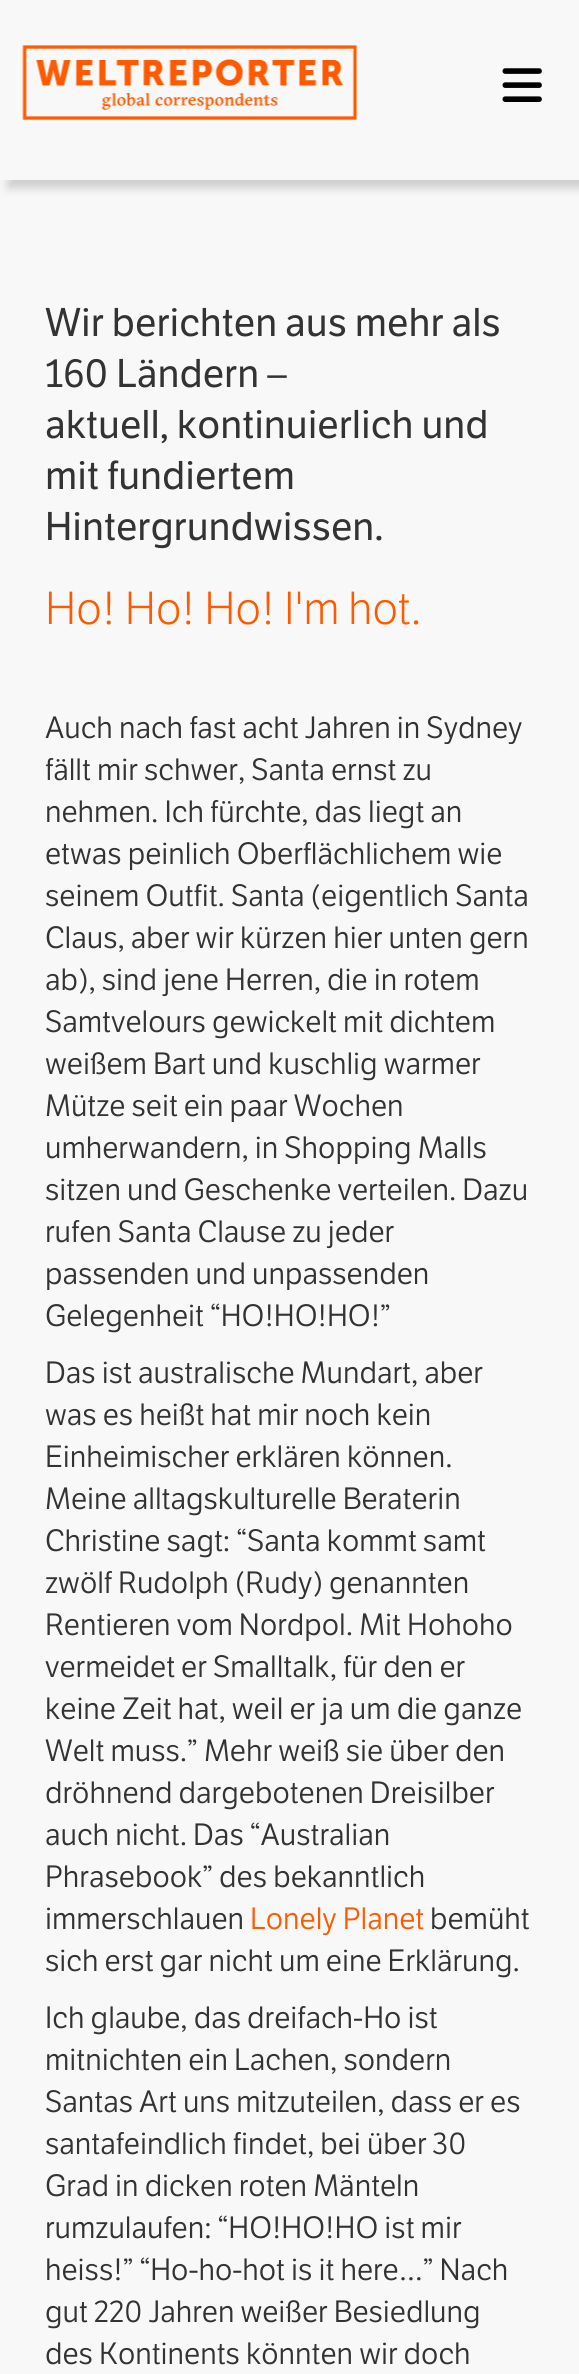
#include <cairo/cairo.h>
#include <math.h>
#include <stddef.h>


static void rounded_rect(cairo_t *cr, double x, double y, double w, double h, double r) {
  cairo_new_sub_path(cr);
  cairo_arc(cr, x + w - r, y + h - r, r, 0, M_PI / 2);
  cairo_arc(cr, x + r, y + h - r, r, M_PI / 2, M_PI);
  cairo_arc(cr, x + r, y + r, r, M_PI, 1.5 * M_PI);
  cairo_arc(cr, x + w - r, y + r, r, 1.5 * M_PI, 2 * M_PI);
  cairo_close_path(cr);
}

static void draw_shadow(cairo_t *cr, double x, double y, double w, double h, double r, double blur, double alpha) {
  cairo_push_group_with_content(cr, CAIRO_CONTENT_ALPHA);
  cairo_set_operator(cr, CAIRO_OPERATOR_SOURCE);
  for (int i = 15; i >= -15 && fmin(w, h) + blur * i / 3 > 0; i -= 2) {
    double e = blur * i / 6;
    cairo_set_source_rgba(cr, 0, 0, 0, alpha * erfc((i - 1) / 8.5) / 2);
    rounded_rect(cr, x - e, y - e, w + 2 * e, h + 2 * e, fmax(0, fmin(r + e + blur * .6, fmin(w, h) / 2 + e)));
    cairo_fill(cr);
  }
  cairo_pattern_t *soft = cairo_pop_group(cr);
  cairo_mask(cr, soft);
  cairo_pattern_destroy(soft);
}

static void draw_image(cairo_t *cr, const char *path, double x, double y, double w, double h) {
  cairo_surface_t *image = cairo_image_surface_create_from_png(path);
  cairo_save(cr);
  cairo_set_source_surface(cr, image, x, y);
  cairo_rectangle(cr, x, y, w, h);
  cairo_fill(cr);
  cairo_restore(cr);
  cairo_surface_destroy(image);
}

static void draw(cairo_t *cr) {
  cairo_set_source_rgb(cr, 248 / 255.0, 248 / 255.0, 248 / 255.0);
  cairo_paint(cr);
  cairo_set_source_rgb(cr, 204 / 255.0, 204 / 255.0, 204 / 255.0);
  draw_shadow(cr, 8, 8, 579, 180, 0, 5, 1);
  cairo_set_source_rgb(cr, 248 / 255.0, 248 / 255.0, 248 / 255.0);
  cairo_rectangle(cr, 0, 0, 579, 180);
  cairo_fill(cr);
  draw_image(cr, "images/1.png", 22, 45, 336, 75);
  draw_image(cr, "images/2.png", 502, 68, 40, 34);
  cairo_select_font_face(cr, "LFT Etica", CAIRO_FONT_SLANT_NORMAL, CAIRO_FONT_WEIGHT_NORMAL);
  cairo_set_font_size(cr, 39);
  cairo_set_source_rgb(cr, 51 / 255.0, 51 / 255.0, 51 / 255.0);
  cairo_move_to(cr, 45, 336);
  cairo_show_text(cr, "Wir berichten aus mehr als");
  cairo_move_to(cr, 45, 387);
  cairo_show_text(cr, "160 Ländern –");
  cairo_move_to(cr, 45, 438);
  cairo_show_text(cr, "aktuell, kontinuierlich und");
  cairo_move_to(cr, 45, 489);
  cairo_show_text(cr, "mit fundiertem");
  cairo_move_to(cr, 45, 540);
  cairo_show_text(cr, "Hintergrundwissen.");
  cairo_select_font_face(cr, "LFT Etica Light", CAIRO_FONT_SLANT_NORMAL, CAIRO_FONT_WEIGHT_NORMAL);
  cairo_set_font_size(cr, 45);
  cairo_set_source_rgb(cr, 1, 90 / 255.0, 0);
  cairo_move_to(cr, 45, 624);
  cairo_show_text(cr, "Ho! Ho! Ho! I'm hot.");
  cairo_select_font_face(cr, "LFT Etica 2", CAIRO_FONT_SLANT_NORMAL, CAIRO_FONT_WEIGHT_NORMAL);
  cairo_set_font_size(cr, 30);
  cairo_set_source_rgb(cr, 51 / 255.0, 51 / 255.0, 51 / 255.0);
  cairo_move_to(cr, 45, 738);
  cairo_show_text(cr, "Auch nach fast acht Jahren in Sydney");
  cairo_move_to(cr, 45, 780);
  cairo_show_text(cr, "fällt mir schwer, Santa ernst zu");
  cairo_move_to(cr, 45, 822);
  cairo_show_text(cr, "nehmen. Ich fürchte, das liegt an");
  cairo_move_to(cr, 45, 864);
  cairo_show_text(cr, "etwas peinlich Oberflächlichem wie");
  cairo_move_to(cr, 45, 906);
  cairo_show_text(cr, "seinem Outfit. Santa (eigentlich Santa");
  cairo_move_to(cr, 45, 948);
  cairo_show_text(cr, "Claus, aber wir kürzen hier unten gern");
  cairo_move_to(cr, 45, 990);
  cairo_show_text(cr, "ab), sind jene Herren, die in rotem");
  cairo_move_to(cr, 45, 1032);
  cairo_show_text(cr, "Samtvelours gewickelt mit dichtem");
  cairo_move_to(cr, 45, 1074);
  cairo_show_text(cr, "weißem Bart und kuschlig warmer");
  cairo_move_to(cr, 45, 1116);
  cairo_show_text(cr, "Mütze seit ein paar Wochen");
  cairo_move_to(cr, 45, 1158);
  cairo_show_text(cr, "umherwandern, in Shopping Malls");
  cairo_move_to(cr, 45, 1200);
  cairo_show_text(cr, "sitzen und Geschenke verteilen. Dazu");
  cairo_move_to(cr, 45, 1242);
  cairo_show_text(cr, "rufen Santa Clause zu jeder");
  cairo_move_to(cr, 45, 1284);
  cairo_show_text(cr, "passenden und unpassenden");
  cairo_move_to(cr, 45, 1326);
  cairo_show_text(cr, "Gelegenheit “HO!HO!HO!”");
  cairo_move_to(cr, 45, 1383);
  cairo_show_text(cr, "Das ist australische Mundart, aber");
  cairo_move_to(cr, 45, 1425);
  cairo_show_text(cr, "was es heißt hat mir noch kein");
  cairo_move_to(cr, 45, 1467);
  cairo_show_text(cr, "Einheimischer erklären können.");
  cairo_move_to(cr, 45, 1509);
  cairo_show_text(cr, "Meine alltagskulturelle Beraterin");
  cairo_move_to(cr, 45, 1551);
  cairo_show_text(cr, "Christine sagt: “Santa kommt samt");
  cairo_move_to(cr, 45, 1593);
  cairo_show_text(cr, "zwölf Rudolph (Rudy) genannten");
  cairo_move_to(cr, 45, 1635);
  cairo_show_text(cr, "Rentieren vom Nordpol. Mit Hohoho");
  cairo_move_to(cr, 45, 1677);
  cairo_show_text(cr, "vermeidet er Smalltalk, für den er");
  cairo_move_to(cr, 45, 1719);
  cairo_show_text(cr, "keine Zeit hat, weil er ja um die ganze");
  cairo_move_to(cr, 45, 1761);
  cairo_show_text(cr, "Welt muss.” Mehr weiß sie über den");
  cairo_move_to(cr, 45, 1803);
  cairo_show_text(cr, "dröhnend dargebotenen Dreisilber");
  cairo_move_to(cr, 45, 1845);
  cairo_show_text(cr, "auch nicht. Das “Australian");
  cairo_move_to(cr, 45, 1887);
  cairo_show_text(cr, "Phrasebook” des bekanntlich");
  cairo_move_to(cr, 45, 1929);
  cairo_show_text(cr, "immerschlauen");
  cairo_set_source_rgb(cr, 1, 90 / 255.0, 0);
  cairo_move_to(cr, 250, 1929);
  cairo_show_text(cr, "Lonely Planet");
  cairo_set_source_rgb(cr, 51 / 255.0, 51 / 255.0, 51 / 255.0);
  cairo_move_to(cr, 430, 1929);
  cairo_show_text(cr, "bemüht");
  cairo_move_to(cr, 45, 1971);
  cairo_show_text(cr, "sich erst gar nicht um eine Erklärung.");
  cairo_move_to(cr, 45, 2028);
  cairo_show_text(cr, "Ich glaube, das dreifach-Ho ist");
  cairo_move_to(cr, 45, 2070);
  cairo_show_text(cr, "mitnichten ein Lachen, sondern");
  cairo_move_to(cr, 45, 2112);
  cairo_show_text(cr, "Santas Art uns mitzuteilen, dass er es");
  cairo_move_to(cr, 45, 2154);
  cairo_show_text(cr, "santafeindlich findet, bei über 30");
  cairo_move_to(cr, 45, 2196);
  cairo_show_text(cr, "Grad in dicken roten Mänteln");
  cairo_move_to(cr, 45, 2238);
  cairo_show_text(cr, "rumzulaufen: “HO!HO!HO ist mir");
  cairo_move_to(cr, 45, 2280);
  cairo_show_text(cr, "heiss!” “Ho-ho-hot is it here…” Nach");
  cairo_move_to(cr, 45, 2322);
  cairo_show_text(cr, "gut 220 Jahren weißer Besiedlung");
  cairo_move_to(cr, 45, 2364);
  cairo_show_text(cr, "des Kontinents könnten wir doch");
}

int main(void) {
  cairo_surface_t *surface = cairo_image_surface_create(CAIRO_FORMAT_RGB24, 579, 2374);
  cairo_t *cr = cairo_create(surface);
  cairo_font_options_t *options = cairo_font_options_create();
  cairo_font_options_set_hint_metrics(options, CAIRO_HINT_METRICS_OFF);
  cairo_font_options_set_hint_style(options, CAIRO_HINT_STYLE_NONE);
  cairo_set_font_options(cr, options);
  cairo_set_miter_limit(cr, 4);
  draw(cr);
  cairo_surface_write_to_png(surface, "out.png");
  cairo_font_options_destroy(options);
  cairo_destroy(cr);
  cairo_surface_destroy(surface);
  return 0;
}
